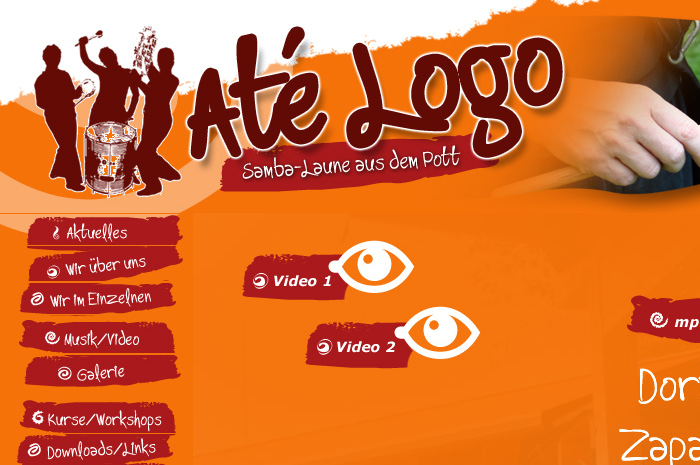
#include <cairo/cairo.h>
#include <math.h>
#include <stddef.h>


static void draw_image(cairo_t *cr, const char *path, double x, double y, double w, double h) {
  cairo_surface_t *image = cairo_image_surface_create_from_png(path);
  cairo_save(cr);
  cairo_set_source_surface(cr, image, x, y);
  cairo_rectangle(cr, x, y, w, h);
  cairo_fill(cr);
  cairo_restore(cr);
  cairo_surface_destroy(image);
}

static void draw(cairo_t *cr) {
  cairo_set_source_rgb(cr, 245 / 255.0, 114 / 255.0, 9 / 255.0);
  cairo_paint(cr);
  draw_image(cr, "images/1.png", 0, 0, 700, 188);
  draw_image(cr, "images/2.png", 0, 188, 700, 25);
  draw_image(cr, "images/3.png", 0, 214, 184, 31);
  draw_image(cr, "images/4.png", 193, 213, 507, 102);
  draw_image(cr, "images/5.png", 193, 315, 30, 150);
  draw_image(cr, "images/6.png", 223, 315, 347, 150);
  draw_image(cr, "images/7.png", 570, 315, 130, 150);
  draw_image(cr, "images/8.png", 24, 246, 160, 35);
  draw_image(cr, "images/9.png", 16, 283, 160, 31);
  draw_image(cr, "images/10.png", 16, 315, 160, 38);
  draw_image(cr, "images/11.png", 24, 355, 160, 32);
  draw_image(cr, "images/12.png", 16, 397, 160, 36);
  draw_image(cr, "images/13.png", 16, 434, 160, 31);
}

int main(void) {
  cairo_surface_t *surface = cairo_image_surface_create(CAIRO_FORMAT_RGB24, 700, 465);
  cairo_t *cr = cairo_create(surface);
  cairo_font_options_t *options = cairo_font_options_create();
  cairo_font_options_set_hint_metrics(options, CAIRO_HINT_METRICS_OFF);
  cairo_font_options_set_hint_style(options, CAIRO_HINT_STYLE_NONE);
  cairo_set_font_options(cr, options);
  cairo_set_miter_limit(cr, 4);
  draw(cr);
  cairo_surface_write_to_png(surface, "out.png");
  cairo_font_options_destroy(options);
  cairo_destroy(cr);
  cairo_surface_destroy(surface);
  return 0;
}
